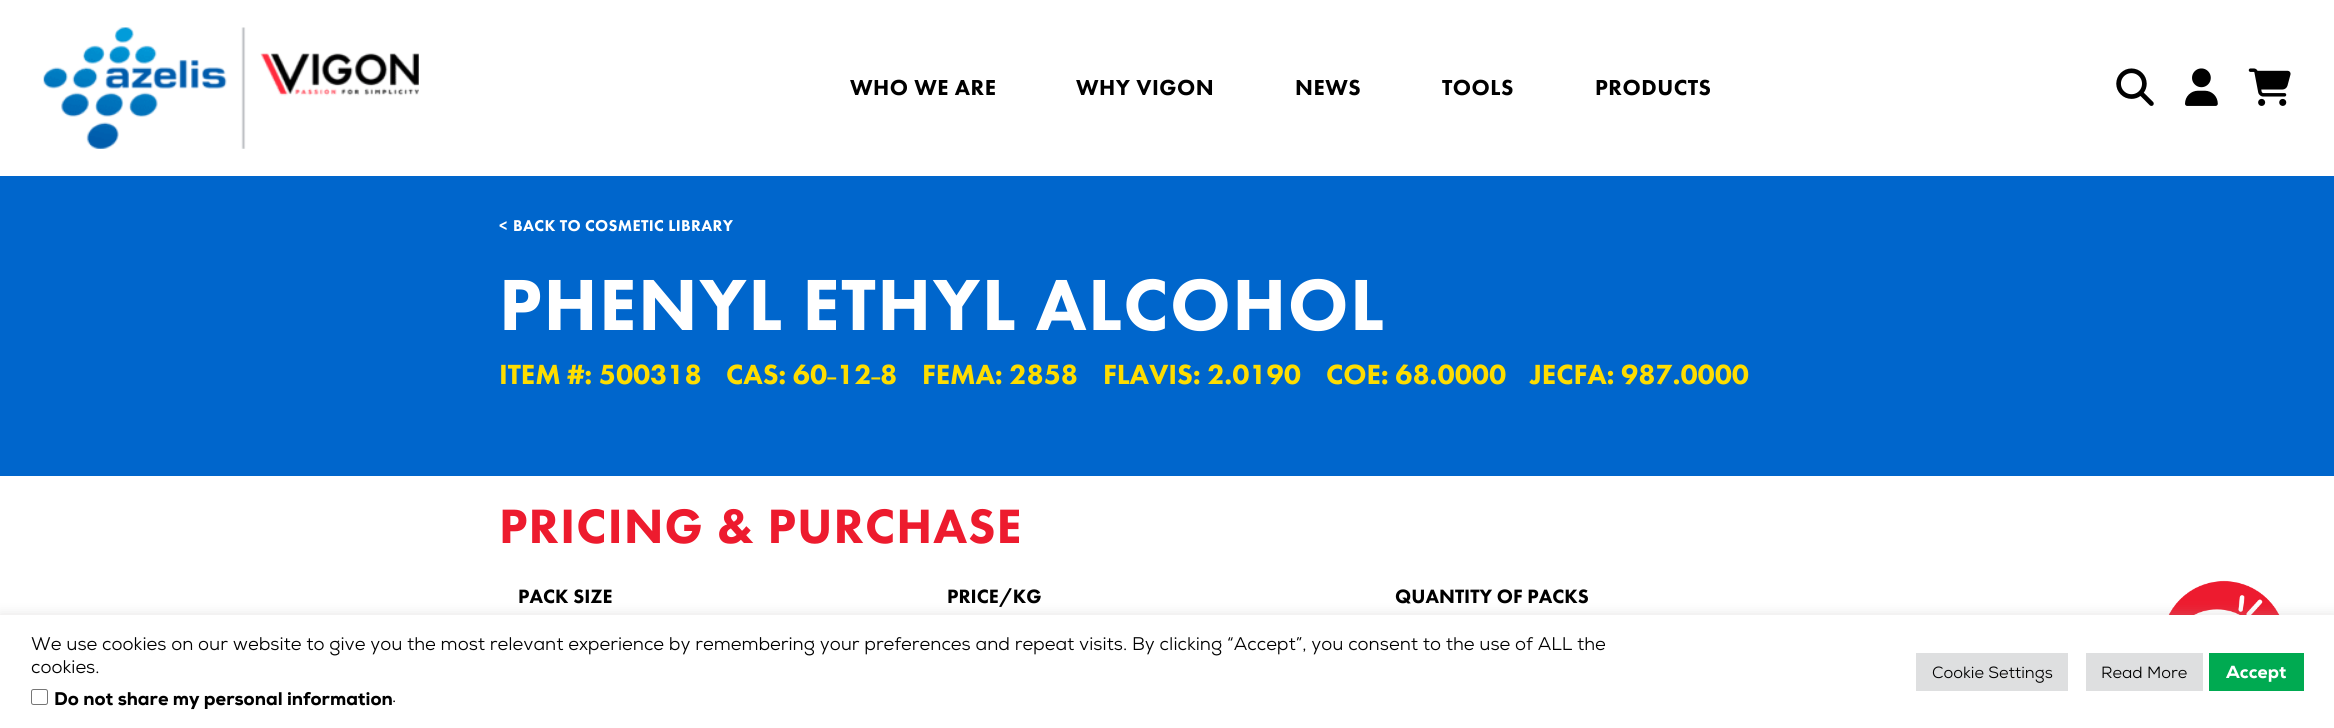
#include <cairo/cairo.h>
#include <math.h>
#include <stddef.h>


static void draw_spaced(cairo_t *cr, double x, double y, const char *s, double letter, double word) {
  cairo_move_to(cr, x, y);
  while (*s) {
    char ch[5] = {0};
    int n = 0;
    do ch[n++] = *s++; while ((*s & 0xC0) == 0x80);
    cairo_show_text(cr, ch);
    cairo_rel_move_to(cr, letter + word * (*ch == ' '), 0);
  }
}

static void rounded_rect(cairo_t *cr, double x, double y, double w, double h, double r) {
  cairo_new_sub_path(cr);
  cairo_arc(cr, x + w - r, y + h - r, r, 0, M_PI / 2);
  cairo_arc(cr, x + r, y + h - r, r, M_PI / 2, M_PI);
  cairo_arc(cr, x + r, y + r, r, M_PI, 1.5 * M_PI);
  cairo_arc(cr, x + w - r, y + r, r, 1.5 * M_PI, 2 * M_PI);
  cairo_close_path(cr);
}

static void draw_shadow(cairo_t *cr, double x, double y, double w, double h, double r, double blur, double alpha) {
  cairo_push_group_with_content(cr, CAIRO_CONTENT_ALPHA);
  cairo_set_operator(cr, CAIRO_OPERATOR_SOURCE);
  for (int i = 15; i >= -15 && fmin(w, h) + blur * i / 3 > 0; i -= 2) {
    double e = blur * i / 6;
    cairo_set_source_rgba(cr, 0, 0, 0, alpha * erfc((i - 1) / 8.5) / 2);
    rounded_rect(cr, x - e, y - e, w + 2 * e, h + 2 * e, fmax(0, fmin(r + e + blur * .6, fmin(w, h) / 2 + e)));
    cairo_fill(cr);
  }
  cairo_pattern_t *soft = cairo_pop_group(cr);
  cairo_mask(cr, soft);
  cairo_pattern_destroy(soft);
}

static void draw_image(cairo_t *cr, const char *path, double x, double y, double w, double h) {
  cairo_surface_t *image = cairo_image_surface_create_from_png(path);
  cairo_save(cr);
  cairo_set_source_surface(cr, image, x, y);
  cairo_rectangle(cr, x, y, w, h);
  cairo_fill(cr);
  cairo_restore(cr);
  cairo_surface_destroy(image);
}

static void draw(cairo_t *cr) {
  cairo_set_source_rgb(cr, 1, 1, 1);
  cairo_paint(cr);
  draw_image(cr, "images/1.png", 43, 27, 376, 122);
  draw_image(cr, "images/2.png", 2116, 68, 38, 38);
  draw_image(cr, "images/3.png", 2185, 68, 33, 38);
  draw_image(cr, "images/4.png", 2248, 68, 43, 38);
  cairo_set_source_rgb(cr, 0, 102 / 255.0, 204 / 255.0);
  cairo_rectangle(cr, 0, 176, 2334, 300);
  cairo_fill(cr);
  draw_image(cr, "images/5.png", 2163, 580, 122, 35);
  cairo_set_source_rgb(cr, 172 / 255.0, 171 / 255.0, 171 / 255.0);
  draw_shadow(cr, 0, 614, 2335, 114, 0, 6, 0.3);
  cairo_set_source_rgb(cr, 1, 1, 1);
  cairo_rectangle(cr, 0, 615, 2334, 113);
  cairo_fill(cr);
  rounded_rect(cr, 31.5, 689.5, 16, 15, 2);
  cairo_set_source_rgb(cr, 118 / 255.0, 118 / 255.0, 118 / 255.0);
  cairo_set_line_width(cr, 1);
  cairo_stroke(cr);
  cairo_set_source_rgb(cr, 222 / 255.0, 223 / 255.0, 224 / 255.0);
  cairo_rectangle(cr, 1916, 653, 152, 38);
  cairo_fill(cr);
  cairo_rectangle(cr, 2086, 653, 117, 38);
  cairo_fill(cr);
  cairo_set_source_rgb(cr, 0, 170 / 255.0, 81 / 255.0);
  cairo_rectangle(cr, 2209, 653, 95, 38);
  cairo_fill(cr);
  cairo_select_font_face(cr, "Futura PT Black", CAIRO_FONT_SLANT_NORMAL, CAIRO_FONT_WEIGHT_NORMAL);
  cairo_set_font_size(cr, 22.5);
  cairo_set_source_rgb(cr, 0, 0, 0);
  draw_spaced(cr, 850, 95, "WHO WE ARE", 0.5, 0);
  draw_spaced(cr, 1076, 95, "WHY VIGON", 0.5, 0);
  draw_spaced(cr, 1295, 95, "NEWS", 0.5, 0);
  draw_spaced(cr, 1442, 95, "TOOLS", 0.5, 0);
  draw_spaced(cr, 1595, 95, "PRODUCTS", 0.5, 0);
  cairo_set_font_size(cr, 16.25);
  cairo_set_source_rgb(cr, 1, 1, 1);
  draw_spaced(cr, 499, 231, "<", 0.3, 0);
  draw_spaced(cr, 513, 231, "BACK TO COSMETIC LIBRARY", 0.3, 0);
  cairo_set_font_size(cr, 75);
  draw_spaced(cr, 499, 330, "PHENYL ETHYL ALCOHOL", 1.5, 0);
  cairo_set_font_size(cr, 28.75);
  cairo_set_source_rgb(cr, 254 / 255.0, 221 / 255.0, 0);
  draw_spaced(cr, 499, 384, "ITEM #: 500318", -0.1, 0);
  draw_spaced(cr, 726, 384, "CAS: 60", -0.1, 0);
  cairo_select_font_face(cr, "Liberation Serif", CAIRO_FONT_SLANT_NORMAL, CAIRO_FONT_WEIGHT_BOLD);
  draw_spaced(cr, 827, 384, "˗", -0.1, 0);
  cairo_select_font_face(cr, "Futura PT Black", CAIRO_FONT_SLANT_NORMAL, CAIRO_FONT_WEIGHT_NORMAL);
  draw_spaced(cr, 837, 384, "12", -0.1, 0);
  cairo_select_font_face(cr, "Liberation Serif", CAIRO_FONT_SLANT_NORMAL, CAIRO_FONT_WEIGHT_BOLD);
  draw_spaced(cr, 871, 384, "˗", -0.1, 0);
  cairo_select_font_face(cr, "Futura PT Black", CAIRO_FONT_SLANT_NORMAL, CAIRO_FONT_WEIGHT_NORMAL);
  draw_spaced(cr, 880, 384, "8", -0.1, 0);
  draw_spaced(cr, 922, 384, "FEMA: 2858", -0.1, 0);
  draw_spaced(cr, 1103, 384, "FLAVIS: 2.0190", -0.1, 0);
  draw_spaced(cr, 1326, 384, "COE: 68.0000", -0.1, 0);
  draw_spaced(cr, 1530, 384, "JECFA: 987.0000", -0.1, 0);
  cairo_set_font_size(cr, 50);
  cairo_set_source_rgb(cr, 237 / 255.0, 27 / 255.0, 46 / 255.0);
  draw_spaced(cr, 499, 543, "PRICING & PURCHASE", 1, 0);
  cairo_set_font_size(cr, 20);
  cairo_set_source_rgb(cr, 0, 0, 0);
  cairo_move_to(cr, 518, 603);
  cairo_show_text(cr, "PACK SIZE");
  cairo_move_to(cr, 947, 603);
  cairo_show_text(cr, "PRICE/KG");
  cairo_move_to(cr, 1395, 603);
  cairo_show_text(cr, "QUANTITY OF PACKS");
  cairo_select_font_face(cr, "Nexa", CAIRO_FONT_SLANT_NORMAL, CAIRO_FONT_WEIGHT_NORMAL);
  cairo_set_font_size(cr, 18.33);
  cairo_move_to(cr, 31, 650);
  cairo_show_text(cr, "We use cookies on our website to give you the most relevant experience by remembering your preferences and repeat visits. By clicking “Accept”, you consent to the use of ALL the");
  cairo_move_to(cr, 31, 673);
  cairo_show_text(cr, "cookies.");
  cairo_select_font_face(cr, "Nexa Black", CAIRO_FONT_SLANT_NORMAL, CAIRO_FONT_WEIGHT_NORMAL);
  cairo_move_to(cr, 54, 705);
  cairo_show_text(cr, "Do not share my personal information");
  cairo_select_font_face(cr, "Nexa", CAIRO_FONT_SLANT_NORMAL, CAIRO_FONT_WEIGHT_NORMAL);
  cairo_move_to(cr, 392, 702);
  cairo_show_text(cr, ".");
  cairo_set_font_size(cr, 16.25);
  cairo_move_to(cr, 1932, 678);
  cairo_show_text(cr, "Cookie Settings");
  cairo_move_to(cr, 2101, 678);
  cairo_show_text(cr, "Read More");
  cairo_select_font_face(cr, "Nexa Black", CAIRO_FONT_SLANT_NORMAL, CAIRO_FONT_WEIGHT_NORMAL);
  cairo_set_font_size(cr, 17.5);
  cairo_set_source_rgb(cr, 1, 1, 1);
  cairo_move_to(cr, 2226, 678);
  cairo_show_text(cr, "Accept");
}

int main(void) {
  cairo_surface_t *surface = cairo_image_surface_create(CAIRO_FORMAT_RGB24, 2334, 728);
  cairo_t *cr = cairo_create(surface);
  cairo_font_options_t *options = cairo_font_options_create();
  cairo_font_options_set_hint_metrics(options, CAIRO_HINT_METRICS_OFF);
  cairo_font_options_set_hint_style(options, CAIRO_HINT_STYLE_NONE);
  cairo_set_font_options(cr, options);
  cairo_set_miter_limit(cr, 4);
  draw(cr);
  cairo_surface_write_to_png(surface, "out.png");
  cairo_font_options_destroy(options);
  cairo_destroy(cr);
  cairo_surface_destroy(surface);
  return 0;
}
